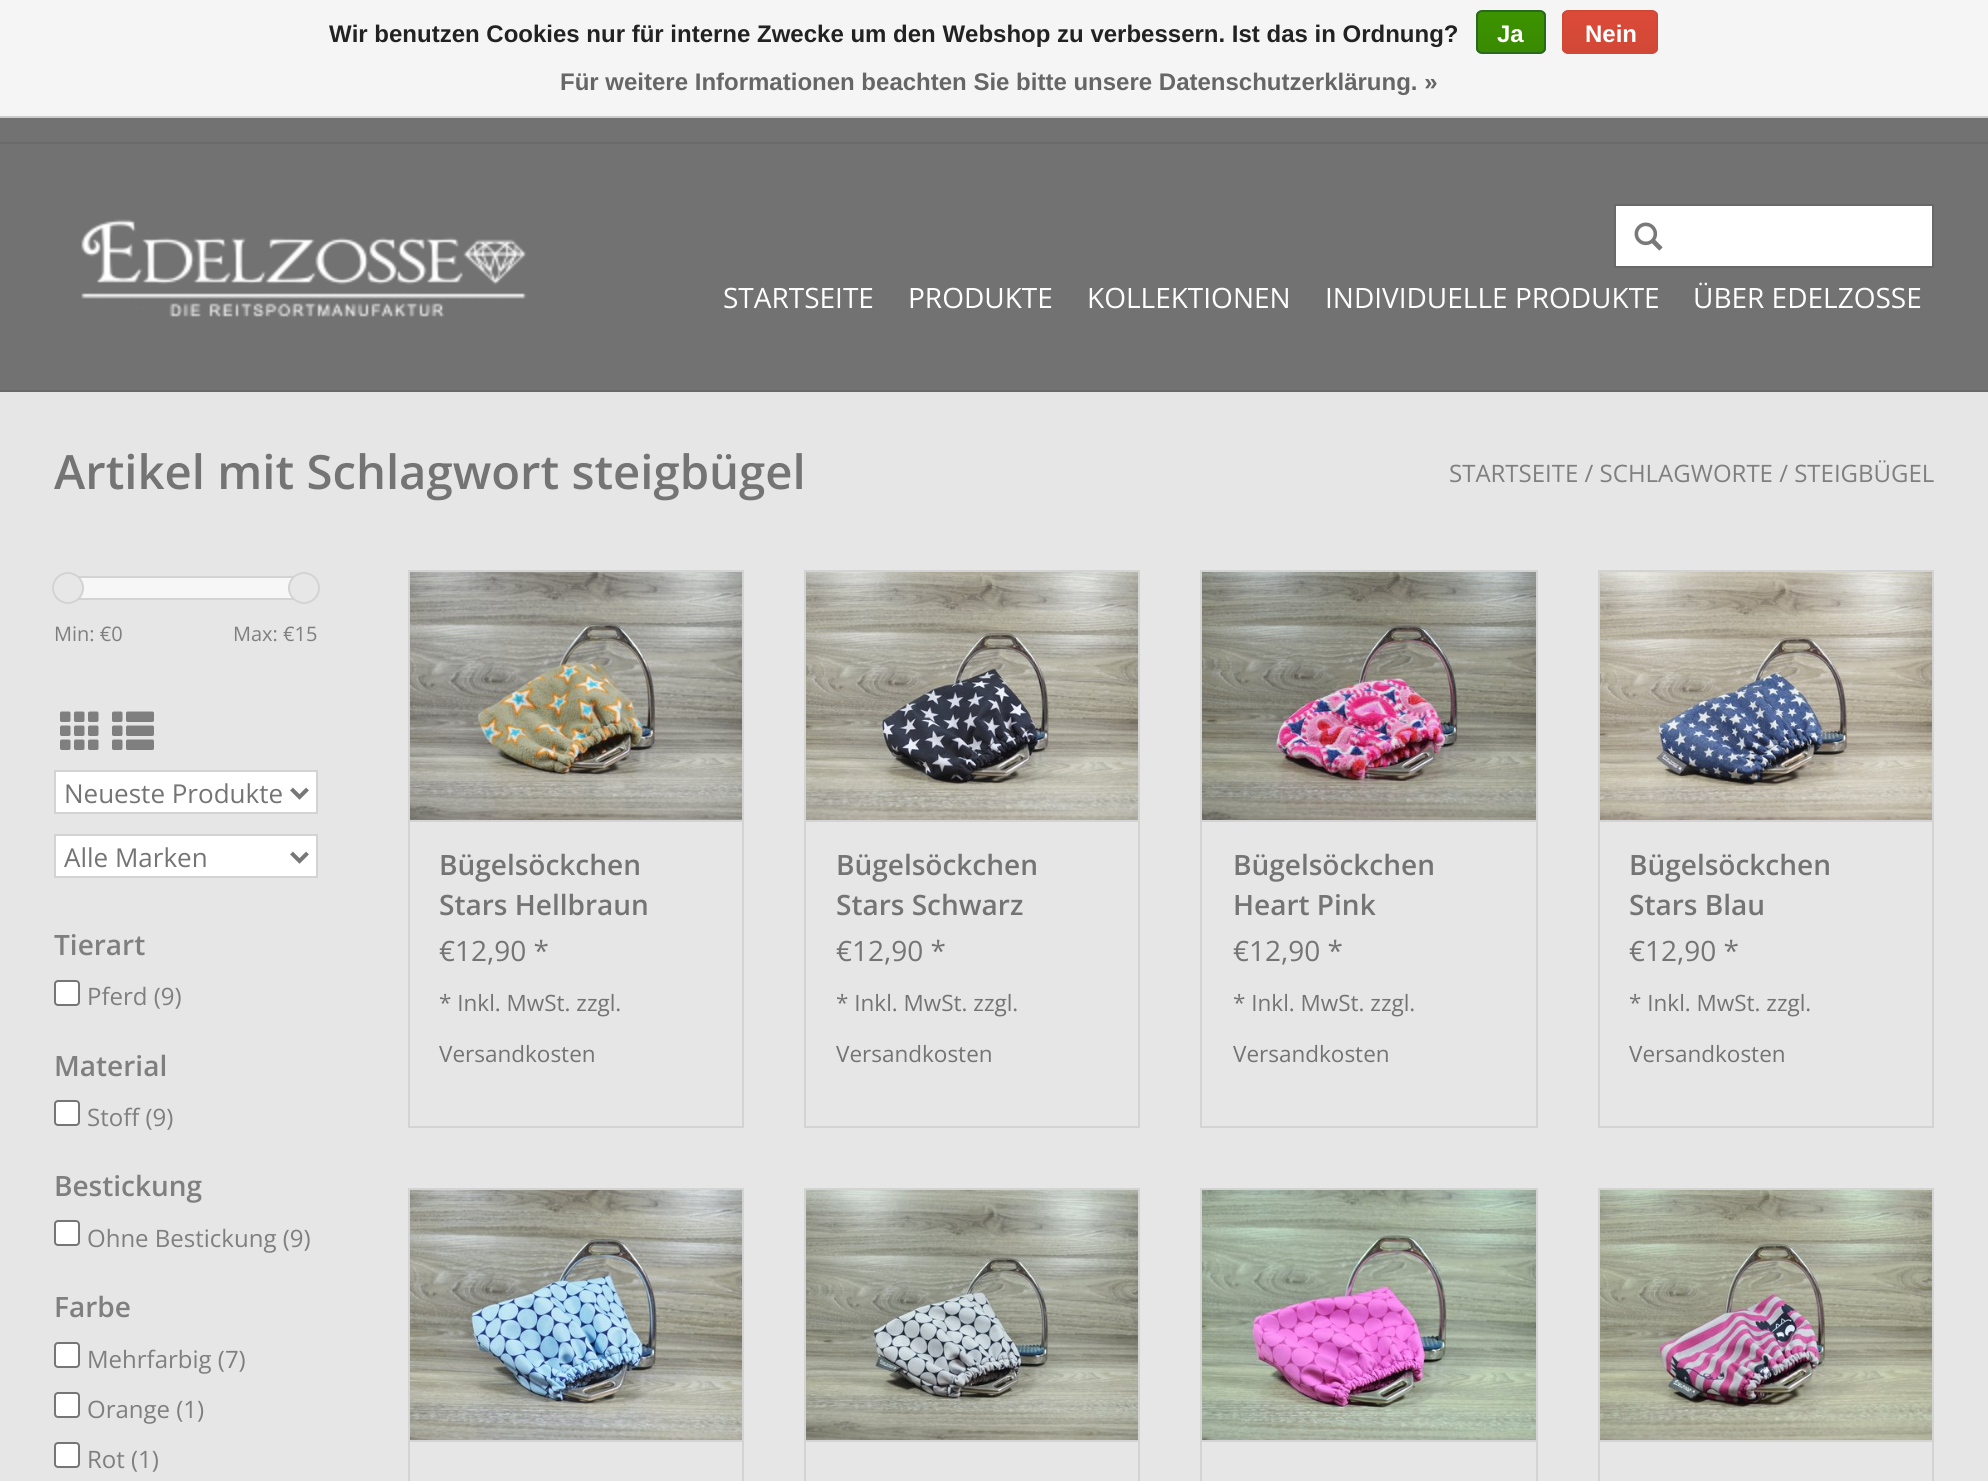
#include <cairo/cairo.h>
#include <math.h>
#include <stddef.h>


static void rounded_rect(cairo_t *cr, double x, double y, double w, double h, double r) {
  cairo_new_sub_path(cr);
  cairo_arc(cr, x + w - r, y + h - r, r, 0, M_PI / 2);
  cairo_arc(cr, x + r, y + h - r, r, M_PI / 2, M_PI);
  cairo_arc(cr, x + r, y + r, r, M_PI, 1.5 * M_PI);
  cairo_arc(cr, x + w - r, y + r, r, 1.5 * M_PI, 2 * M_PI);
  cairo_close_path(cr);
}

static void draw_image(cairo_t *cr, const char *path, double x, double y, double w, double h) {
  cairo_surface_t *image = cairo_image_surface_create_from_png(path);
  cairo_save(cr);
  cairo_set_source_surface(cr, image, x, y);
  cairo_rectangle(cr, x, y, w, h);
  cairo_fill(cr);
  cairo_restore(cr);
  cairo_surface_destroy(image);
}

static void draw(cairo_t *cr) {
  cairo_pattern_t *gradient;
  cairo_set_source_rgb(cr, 230 / 255.0, 230 / 255.0, 230 / 255.0);
  cairo_paint(cr);
  cairo_set_source_rgb(cr, 245 / 255.0, 245 / 255.0, 245 / 255.0);
  cairo_rectangle(cr, 0, 0, 1988, 116);
  cairo_fill(cr);
  cairo_set_source_rgb(cr, 204 / 255.0, 204 / 255.0, 204 / 255.0);
  cairo_rectangle(cr, 0, 116, 1988, 2);
  cairo_fill(cr);
  cairo_save(cr);
  rounded_rect(cr, 1476, 10, 70, 44, 6);
  cairo_clip(cr);
  gradient = cairo_pattern_create_linear(1511, 12, 1511, 52);
  cairo_pattern_add_color_stop_rgba(gradient, 0, 60 / 255.0, 147 / 255.0, 0, 1);
  cairo_pattern_add_color_stop_rgba(gradient, 1, 57 / 255.0, 138 / 255.0, 0, 1);
  cairo_set_source(cr, gradient);
  cairo_pattern_destroy(gradient);
  cairo_rectangle(cr, 1476, 12, 70, 40);
  cairo_fill(cr);
  cairo_restore(cr);
  rounded_rect(cr, 1477, 11, 68, 42, 5);
  cairo_set_source_rgb(cr, 41 / 255.0, 105 / 255.0, 29 / 255.0);
  cairo_stroke(cr);
  cairo_save(cr);
  rounded_rect(cr, 1562, 10, 96, 44, 6);
  cairo_clip(cr);
  gradient = cairo_pattern_create_linear(1610, 12, 1610, 52);
  cairo_pattern_add_color_stop_rgba(gradient, 0, 220 / 255.0, 74 / 255.0, 56 / 255.0, 1);
  cairo_pattern_add_color_stop_rgba(gradient, 1, 209 / 255.0, 72 / 255.0, 54 / 255.0, 1);
  cairo_set_source(cr, gradient);
  cairo_pattern_destroy(gradient);
  cairo_rectangle(cr, 1562, 12, 96, 40);
  cairo_fill(cr);
  cairo_restore(cr);
  rounded_rect(cr, 1563, 11, 94, 42, 5);
  cairo_set_source_rgb(cr, 209 / 255.0, 72 / 255.0, 54 / 255.0);
  cairo_stroke(cr);
  cairo_set_source_rgb(cr, 114 / 255.0, 114 / 255.0, 114 / 255.0);
  cairo_rectangle(cr, 0, 118, 1988, 272);
  cairo_fill(cr);
  cairo_set_source_rgb(cr, 104 / 255.0, 104 / 255.0, 104 / 255.0);
  cairo_rectangle(cr, 0, 390, 1988, 2);
  cairo_fill(cr);
  cairo_set_source_rgb(cr, 106 / 255.0, 106 / 255.0, 106 / 255.0);
  cairo_rectangle(cr, 0, 142, 1988, 2);
  cairo_fill(cr);
  draw_image(cr, "images/1.png", 81, 219, 446, 98);
  cairo_set_source_rgb(cr, 1, 1, 1);
  cairo_rectangle(cr, 1615, 205, 318, 62);
  cairo_fill_preserve(cr);
  cairo_set_source_rgb(cr, 104 / 255.0, 104 / 255.0, 104 / 255.0);
  cairo_stroke(cr);
  draw_image(cr, "images/2.png", 1634, 222, 29, 29);
  cairo_set_source_rgb(cr, 247 / 255.0, 247 / 255.0, 247 / 255.0);
  cairo_rectangle(cr, 80, 578, 212, 20);
  cairo_fill(cr);
  cairo_rectangle(cr, 71, 577, 234, 22);
  cairo_set_source_rgb(cr, 211 / 255.0, 211 / 255.0, 211 / 255.0);
  cairo_stroke(cr);
  cairo_set_source_rgb(cr, 231 / 255.0, 231 / 255.0, 231 / 255.0);
  cairo_arc(cr, 68, 588, 15, 0, 2 * M_PI);
  cairo_fill_preserve(cr);
  cairo_set_source_rgb(cr, 211 / 255.0, 211 / 255.0, 211 / 255.0);
  cairo_stroke(cr);
  cairo_set_source_rgb(cr, 231 / 255.0, 231 / 255.0, 231 / 255.0);
  cairo_arc(cr, 304, 588, 15, 0, 2 * M_PI);
  cairo_fill_preserve(cr);
  cairo_set_source_rgb(cr, 211 / 255.0, 211 / 255.0, 211 / 255.0);
  cairo_stroke(cr);
  draw_image(cr, "images/3.png", 60, 711, 39, 39);
  draw_image(cr, "images/4.png", 112, 711, 42, 39);
  cairo_set_source_rgb(cr, 1, 1, 1);
  cairo_rectangle(cr, 55, 771, 262, 42);
  cairo_fill_preserve(cr);
  cairo_set_source_rgb(cr, 211 / 255.0, 211 / 255.0, 211 / 255.0);
  cairo_stroke(cr);
  cairo_new_path(cr);
  cairo_move_to(cr, 291.5, 789);
  cairo_line_to(cr, 299.5, 797);
  cairo_line_to(cr, 307.5, 789);
  cairo_set_source_rgb(cr, 119 / 255.0, 119 / 255.0, 119 / 255.0);
  cairo_set_line_width(cr, 4);
  cairo_stroke(cr);
  cairo_set_source_rgb(cr, 1, 1, 1);
  cairo_rectangle(cr, 55, 835, 262, 42);
  cairo_fill_preserve(cr);
  cairo_set_source_rgb(cr, 211 / 255.0, 211 / 255.0, 211 / 255.0);
  cairo_set_line_width(cr, 2);
  cairo_stroke(cr);
  cairo_new_path(cr);
  cairo_move_to(cr, 291.5, 853);
  cairo_line_to(cr, 299.5, 861);
  cairo_line_to(cr, 307.5, 853);
  cairo_set_source_rgb(cr, 119 / 255.0, 119 / 255.0, 119 / 255.0);
  cairo_set_line_width(cr, 4);
  cairo_stroke(cr);
  cairo_set_source_rgb(cr, 1, 1, 1);
  rounded_rect(cr, 55, 981, 24, 24, 3);
  cairo_fill_preserve(cr);
  cairo_set_source_rgb(cr, 118 / 255.0, 118 / 255.0, 118 / 255.0);
  cairo_set_line_width(cr, 2);
  cairo_stroke(cr);
  cairo_set_source_rgb(cr, 1, 1, 1);
  rounded_rect(cr, 55, 1101, 24, 24, 3);
  cairo_fill_preserve(cr);
  cairo_set_source_rgb(cr, 118 / 255.0, 118 / 255.0, 118 / 255.0);
  cairo_stroke(cr);
  cairo_set_source_rgb(cr, 1, 1, 1);
  rounded_rect(cr, 55, 1221, 24, 24, 3);
  cairo_fill_preserve(cr);
  cairo_set_source_rgb(cr, 118 / 255.0, 118 / 255.0, 118 / 255.0);
  cairo_stroke(cr);
  cairo_set_source_rgb(cr, 1, 1, 1);
  rounded_rect(cr, 55, 1343, 24, 24, 3);
  cairo_fill_preserve(cr);
  cairo_set_source_rgb(cr, 118 / 255.0, 118 / 255.0, 118 / 255.0);
  cairo_stroke(cr);
  cairo_set_source_rgb(cr, 1, 1, 1);
  rounded_rect(cr, 55, 1393, 24, 24, 3);
  cairo_fill_preserve(cr);
  cairo_set_source_rgb(cr, 118 / 255.0, 118 / 255.0, 118 / 255.0);
  cairo_stroke(cr);
  cairo_set_source_rgb(cr, 1, 1, 1);
  rounded_rect(cr, 55, 1443, 24, 24, 3);
  cairo_fill_preserve(cr);
  cairo_set_source_rgb(cr, 118 / 255.0, 118 / 255.0, 118 / 255.0);
  cairo_stroke(cr);
  cairo_set_source_rgb(cr, 211 / 255.0, 211 / 255.0, 211 / 255.0);
  cairo_rectangle(cr, 408, 570, 336, 2);
  cairo_fill(cr);
  cairo_rectangle(cr, 742, 570, 2, 250);
  cairo_fill(cr);
  cairo_rectangle(cr, 408, 570, 2, 250);
  cairo_fill(cr);
  draw_image(cr, "images/5.png", 410, 572, 332, 248);
  cairo_rectangle(cr, 409, 821, 334, 306);
  cairo_stroke(cr);
  cairo_rectangle(cr, 804, 570, 336, 2);
  cairo_fill(cr);
  cairo_rectangle(cr, 1138, 570, 2, 250);
  cairo_fill(cr);
  cairo_rectangle(cr, 804, 570, 2, 250);
  cairo_fill(cr);
  draw_image(cr, "images/6.png", 806, 572, 332, 248);
  cairo_rectangle(cr, 805, 821, 334, 306);
  cairo_stroke(cr);
  cairo_rectangle(cr, 1200, 570, 338, 2);
  cairo_fill(cr);
  cairo_rectangle(cr, 1536, 570, 2, 250);
  cairo_fill(cr);
  cairo_rectangle(cr, 1200, 570, 2, 250);
  cairo_fill(cr);
  draw_image(cr, "images/7.png", 1202, 572, 334, 248);
  cairo_rectangle(cr, 1201, 821, 336, 306);
  cairo_stroke(cr);
  cairo_rectangle(cr, 1598, 570, 336, 2);
  cairo_fill(cr);
  cairo_rectangle(cr, 1932, 570, 2, 250);
  cairo_fill(cr);
  cairo_rectangle(cr, 1598, 570, 2, 250);
  cairo_fill(cr);
  draw_image(cr, "images/8.png", 1600, 572, 332, 248);
  cairo_rectangle(cr, 1599, 821, 334, 306);
  cairo_stroke(cr);
  cairo_rectangle(cr, 408, 1188, 336, 2);
  cairo_fill(cr);
  cairo_rectangle(cr, 742, 1188, 2, 252);
  cairo_fill(cr);
  cairo_rectangle(cr, 408, 1188, 2, 252);
  cairo_fill(cr);
  draw_image(cr, "images/9.png", 410, 1190, 332, 250);
  cairo_rectangle(cr, 409, 1441, 334, 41);
  cairo_stroke(cr);
  cairo_rectangle(cr, 804, 1188, 336, 2);
  cairo_fill(cr);
  cairo_rectangle(cr, 1138, 1188, 2, 252);
  cairo_fill(cr);
  cairo_rectangle(cr, 804, 1188, 2, 252);
  cairo_fill(cr);
  draw_image(cr, "images/10.png", 806, 1190, 332, 250);
  cairo_rectangle(cr, 805, 1441, 334, 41);
  cairo_stroke(cr);
  cairo_rectangle(cr, 1200, 1188, 338, 2);
  cairo_fill(cr);
  cairo_rectangle(cr, 1536, 1188, 2, 252);
  cairo_fill(cr);
  cairo_rectangle(cr, 1200, 1188, 2, 252);
  cairo_fill(cr);
  draw_image(cr, "images/11.png", 1202, 1190, 334, 250);
  cairo_rectangle(cr, 1201, 1441, 336, 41);
  cairo_stroke(cr);
  cairo_rectangle(cr, 1598, 1188, 336, 2);
  cairo_fill(cr);
  cairo_rectangle(cr, 1932, 1188, 2, 252);
  cairo_fill(cr);
  cairo_rectangle(cr, 1598, 1188, 2, 252);
  cairo_fill(cr);
  draw_image(cr, "images/12.png", 1600, 1190, 332, 250);
  cairo_rectangle(cr, 1599, 1441, 334, 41);
  cairo_stroke(cr);
  cairo_select_font_face(cr, "Liberation Sans", CAIRO_FONT_SLANT_NORMAL, CAIRO_FONT_WEIGHT_BOLD);
  cairo_set_font_size(cr, 24);
  cairo_set_source_rgb(cr, 34 / 255.0, 34 / 255.0, 34 / 255.0);
  cairo_move_to(cr, 329, 42);
  cairo_show_text(cr, "Wir benutzen Cookies nur für interne Zwecke um den Webshop zu verbessern. Ist das in Ordnung?");
  cairo_set_source_rgb(cr, 1, 1, 1);
  cairo_move_to(cr, 1497, 42);
  cairo_show_text(cr, "Ja");
  cairo_move_to(cr, 1585, 42);
  cairo_show_text(cr, "Nein");
  cairo_set_source_rgb(cr, 102 / 255.0, 102 / 255.0, 102 / 255.0);
  cairo_move_to(cr, 560, 90);
  cairo_show_text(cr, "Für weitere Informationen beachten Sie bitte unsere Datenschutzerklärung. »");
  cairo_select_font_face(cr, "Open Sans", CAIRO_FONT_SLANT_NORMAL, CAIRO_FONT_WEIGHT_NORMAL);
  cairo_set_font_size(cr, 28);
  cairo_set_source_rgb(cr, 1, 1, 1);
  cairo_move_to(cr, 723, 308);
  cairo_show_text(cr, "STARTSEITE");
  cairo_move_to(cr, 908, 308);
  cairo_show_text(cr, "PRODUKTE");
  cairo_move_to(cr, 1087, 308);
  cairo_show_text(cr, "KOLLEKTIONEN");
  cairo_move_to(cr, 1325, 308);
  cairo_show_text(cr, "INDIVIDUELLE PRODUKTE");
  cairo_move_to(cr, 1693, 308);
  cairo_show_text(cr, "ÜBER EDELZOSSE");
  cairo_select_font_face(cr, "Open Sans SemiBold", CAIRO_FONT_SLANT_NORMAL, CAIRO_FONT_WEIGHT_NORMAL);
  cairo_set_font_size(cr, 47.25);
  cairo_set_source_rgb(cr, 116 / 255.0, 116 / 255.0, 116 / 255.0);
  cairo_move_to(cr, 54, 489);
  cairo_show_text(cr, "Artikel mit Schlagwort steigbügel");
  cairo_select_font_face(cr, "Open Sans", CAIRO_FONT_SLANT_NORMAL, CAIRO_FONT_WEIGHT_NORMAL);
  cairo_set_font_size(cr, 24);
  cairo_set_source_rgb(cr, 127 / 255.0, 127 / 255.0, 127 / 255.0);
  cairo_move_to(cr, 1449, 482);
  cairo_show_text(cr, "STARTSEITE / SCHLAGWORTE / STEIGBÜGEL");
  cairo_set_font_size(cr, 20);
  cairo_move_to(cr, 54, 641);
  cairo_show_text(cr, "Min: €0");
  cairo_move_to(cr, 233, 641);
  cairo_show_text(cr, "Max: €15");
  cairo_set_font_size(cr, 26);
  cairo_set_source_rgb(cr, 116 / 255.0, 116 / 255.0, 116 / 255.0);
  cairo_move_to(cr, 64, 803);
  cairo_show_text(cr, "Neueste Produkte");
  cairo_move_to(cr, 64, 867);
  cairo_show_text(cr, "Alle Marken");
  cairo_select_font_face(cr, "Open Sans SemiBold", CAIRO_FONT_SLANT_NORMAL, CAIRO_FONT_WEIGHT_NORMAL);
  cairo_set_font_size(cr, 28);
  cairo_set_source_rgb(cr, 127 / 255.0, 127 / 255.0, 127 / 255.0);
  cairo_move_to(cr, 54, 955);
  cairo_show_text(cr, "Tierart");
  cairo_select_font_face(cr, "Open Sans", CAIRO_FONT_SLANT_NORMAL, CAIRO_FONT_WEIGHT_NORMAL);
  cairo_set_font_size(cr, 24);
  cairo_move_to(cr, 87, 1005);
  cairo_show_text(cr, "Pferd (9)");
  cairo_select_font_face(cr, "Open Sans SemiBold", CAIRO_FONT_SLANT_NORMAL, CAIRO_FONT_WEIGHT_NORMAL);
  cairo_set_font_size(cr, 28);
  cairo_move_to(cr, 54, 1076);
  cairo_show_text(cr, "Material");
  cairo_select_font_face(cr, "Open Sans", CAIRO_FONT_SLANT_NORMAL, CAIRO_FONT_WEIGHT_NORMAL);
  cairo_set_font_size(cr, 24);
  cairo_move_to(cr, 87, 1126);
  cairo_show_text(cr, "Stoff (9)");
  cairo_select_font_face(cr, "Open Sans SemiBold", CAIRO_FONT_SLANT_NORMAL, CAIRO_FONT_WEIGHT_NORMAL);
  cairo_set_font_size(cr, 28);
  cairo_move_to(cr, 54, 1196);
  cairo_show_text(cr, "Bestickung");
  cairo_select_font_face(cr, "Open Sans", CAIRO_FONT_SLANT_NORMAL, CAIRO_FONT_WEIGHT_NORMAL);
  cairo_set_font_size(cr, 24);
  cairo_move_to(cr, 87, 1247);
  cairo_show_text(cr, "Ohne Bestickung (9)");
  cairo_select_font_face(cr, "Open Sans SemiBold", CAIRO_FONT_SLANT_NORMAL, CAIRO_FONT_WEIGHT_NORMAL);
  cairo_set_font_size(cr, 28);
  cairo_move_to(cr, 54, 1317);
  cairo_show_text(cr, "Farbe");
  cairo_select_font_face(cr, "Open Sans", CAIRO_FONT_SLANT_NORMAL, CAIRO_FONT_WEIGHT_NORMAL);
  cairo_set_font_size(cr, 24);
  cairo_move_to(cr, 87, 1368);
  cairo_show_text(cr, "Mehrfarbig (7)");
  cairo_move_to(cr, 87, 1418);
  cairo_show_text(cr, "Orange (1)");
  cairo_move_to(cr, 87, 1468);
  cairo_show_text(cr, "Rot (1)");
  cairo_select_font_face(cr, "Open Sans SemiBold", CAIRO_FONT_SLANT_NORMAL, CAIRO_FONT_WEIGHT_NORMAL);
  cairo_set_font_size(cr, 28);
  cairo_set_source_rgb(cr, 116 / 255.0, 116 / 255.0, 116 / 255.0);
  cairo_move_to(cr, 439, 875);
  cairo_show_text(cr, "Bügelsöckchen");
  cairo_move_to(cr, 439, 915);
  cairo_show_text(cr, "Stars Hellbraun");
  cairo_select_font_face(cr, "Open Sans", CAIRO_FONT_SLANT_NORMAL, CAIRO_FONT_WEIGHT_NORMAL);
  cairo_move_to(cr, 439, 961);
  cairo_show_text(cr, "€12,90 *");
  cairo_set_font_size(cr, 22.5);
  cairo_move_to(cr, 439, 1011);
  cairo_show_text(cr, "* Inkl. MwSt. zzgl.");
  cairo_move_to(cr, 439, 1062);
  cairo_show_text(cr, "Versandkosten");
  cairo_select_font_face(cr, "Open Sans SemiBold", CAIRO_FONT_SLANT_NORMAL, CAIRO_FONT_WEIGHT_NORMAL);
  cairo_set_font_size(cr, 28);
  cairo_move_to(cr, 836, 875);
  cairo_show_text(cr, "Bügelsöckchen");
  cairo_move_to(cr, 836, 915);
  cairo_show_text(cr, "Stars Schwarz");
  cairo_select_font_face(cr, "Open Sans", CAIRO_FONT_SLANT_NORMAL, CAIRO_FONT_WEIGHT_NORMAL);
  cairo_move_to(cr, 836, 961);
  cairo_show_text(cr, "€12,90 *");
  cairo_set_font_size(cr, 22.5);
  cairo_move_to(cr, 836, 1011);
  cairo_show_text(cr, "* Inkl. MwSt. zzgl.");
  cairo_move_to(cr, 836, 1062);
  cairo_show_text(cr, "Versandkosten");
  cairo_select_font_face(cr, "Open Sans SemiBold", CAIRO_FONT_SLANT_NORMAL, CAIRO_FONT_WEIGHT_NORMAL);
  cairo_set_font_size(cr, 28);
  cairo_move_to(cr, 1233, 875);
  cairo_show_text(cr, "Bügelsöckchen");
  cairo_move_to(cr, 1233, 915);
  cairo_show_text(cr, "Heart Pink");
  cairo_select_font_face(cr, "Open Sans", CAIRO_FONT_SLANT_NORMAL, CAIRO_FONT_WEIGHT_NORMAL);
  cairo_move_to(cr, 1233, 961);
  cairo_show_text(cr, "€12,90 *");
  cairo_set_font_size(cr, 22.5);
  cairo_move_to(cr, 1233, 1011);
  cairo_show_text(cr, "* Inkl. MwSt. zzgl.");
  cairo_move_to(cr, 1233, 1062);
  cairo_show_text(cr, "Versandkosten");
  cairo_select_font_face(cr, "Open Sans SemiBold", CAIRO_FONT_SLANT_NORMAL, CAIRO_FONT_WEIGHT_NORMAL);
  cairo_set_font_size(cr, 28);
  cairo_move_to(cr, 1629, 875);
  cairo_show_text(cr, "Bügelsöckchen");
  cairo_move_to(cr, 1629, 915);
  cairo_show_text(cr, "Stars Blau");
  cairo_select_font_face(cr, "Open Sans", CAIRO_FONT_SLANT_NORMAL, CAIRO_FONT_WEIGHT_NORMAL);
  cairo_move_to(cr, 1629, 961);
  cairo_show_text(cr, "€12,90 *");
  cairo_set_font_size(cr, 22.5);
  cairo_move_to(cr, 1629, 1011);
  cairo_show_text(cr, "* Inkl. MwSt. zzgl.");
  cairo_move_to(cr, 1629, 1062);
  cairo_show_text(cr, "Versandkosten");
}

int main(void) {
  cairo_surface_t *surface = cairo_image_surface_create(CAIRO_FORMAT_RGB24, 1988, 1481);
  cairo_t *cr = cairo_create(surface);
  cairo_font_options_t *options = cairo_font_options_create();
  cairo_font_options_set_hint_metrics(options, CAIRO_HINT_METRICS_OFF);
  cairo_font_options_set_hint_style(options, CAIRO_HINT_STYLE_NONE);
  cairo_set_font_options(cr, options);
  cairo_set_miter_limit(cr, 4);
  draw(cr);
  cairo_surface_write_to_png(surface, "out.png");
  cairo_font_options_destroy(options);
  cairo_destroy(cr);
  cairo_surface_destroy(surface);
  return 0;
}
